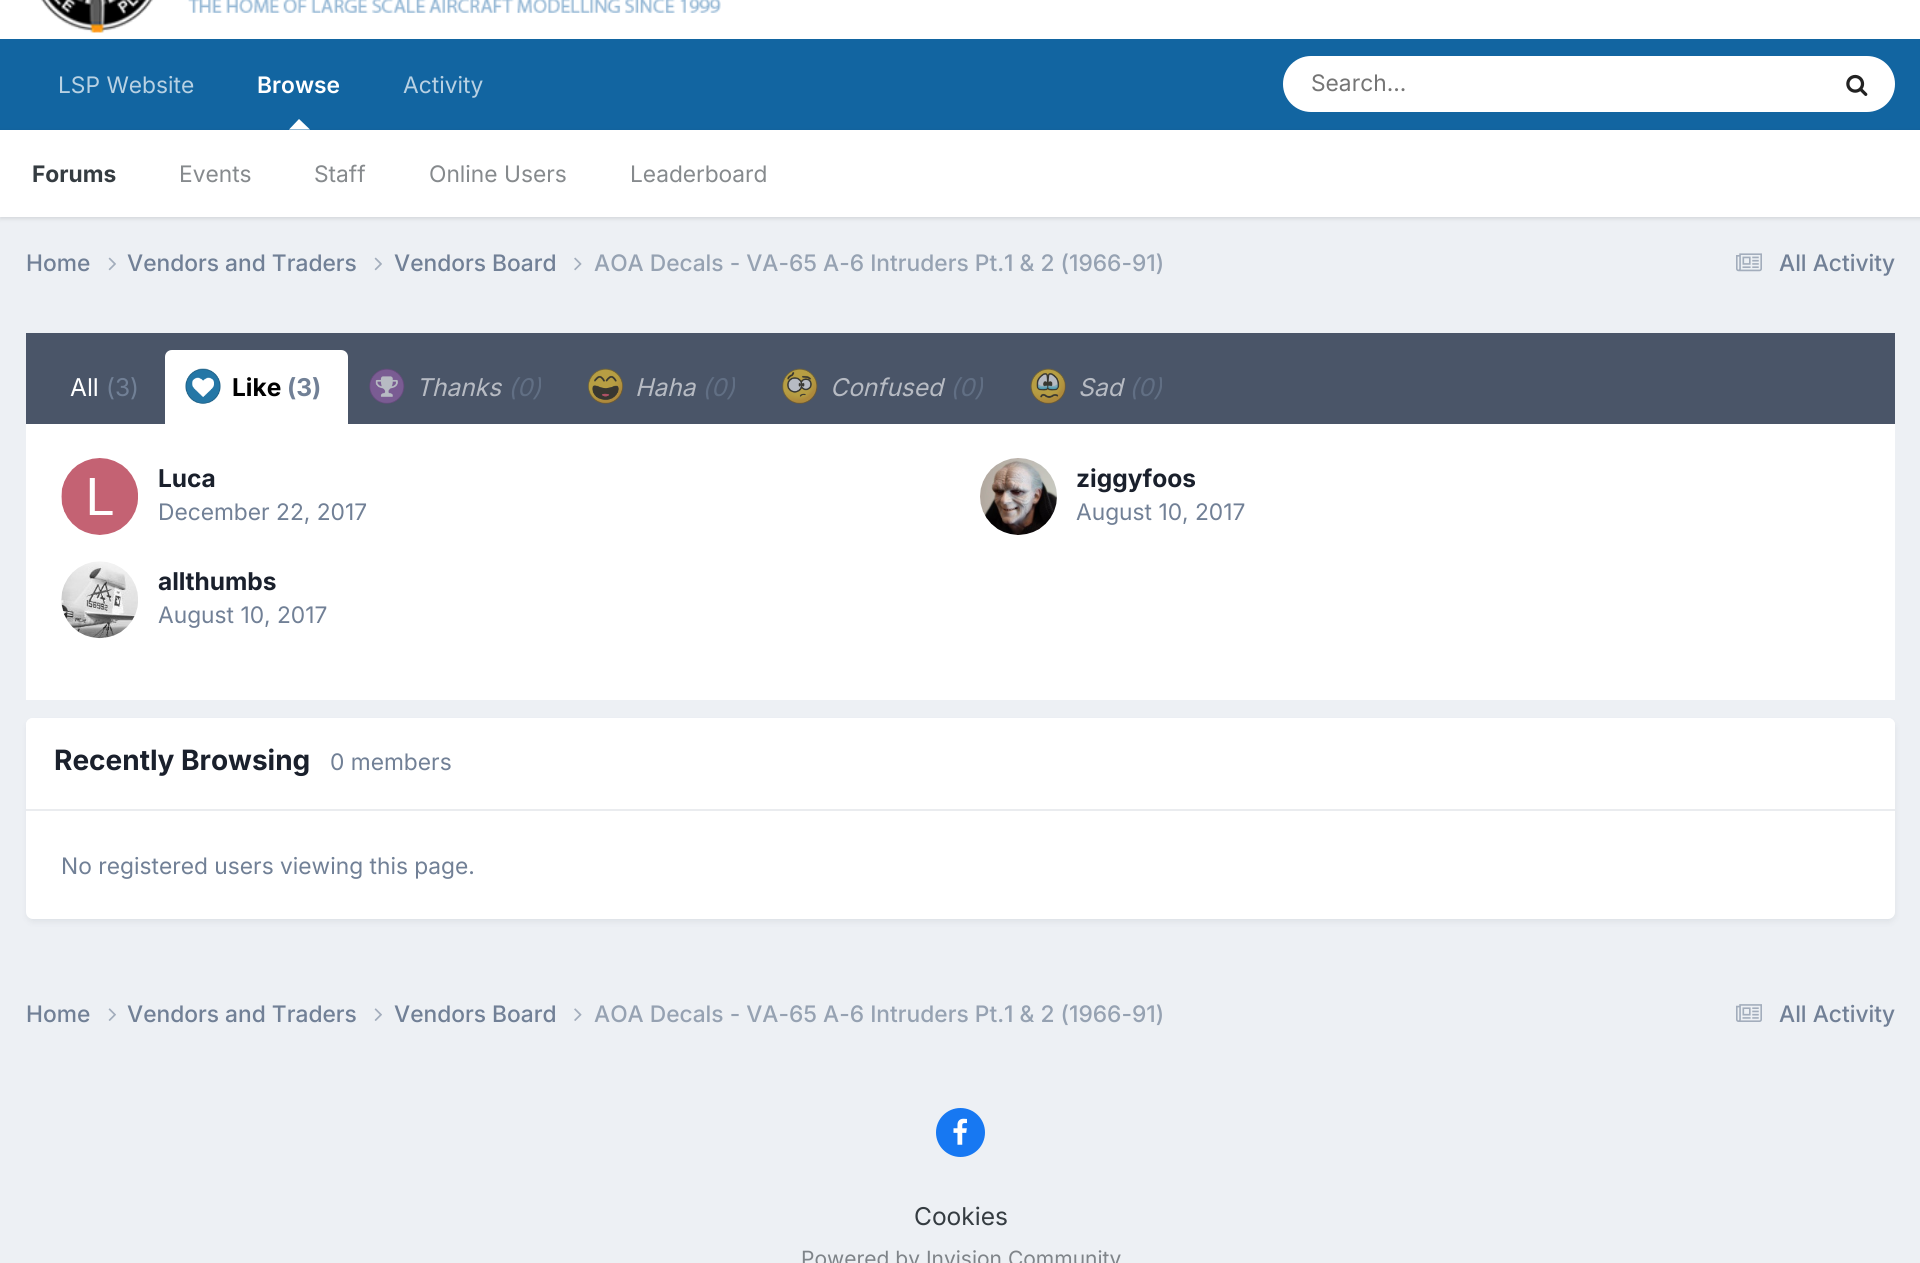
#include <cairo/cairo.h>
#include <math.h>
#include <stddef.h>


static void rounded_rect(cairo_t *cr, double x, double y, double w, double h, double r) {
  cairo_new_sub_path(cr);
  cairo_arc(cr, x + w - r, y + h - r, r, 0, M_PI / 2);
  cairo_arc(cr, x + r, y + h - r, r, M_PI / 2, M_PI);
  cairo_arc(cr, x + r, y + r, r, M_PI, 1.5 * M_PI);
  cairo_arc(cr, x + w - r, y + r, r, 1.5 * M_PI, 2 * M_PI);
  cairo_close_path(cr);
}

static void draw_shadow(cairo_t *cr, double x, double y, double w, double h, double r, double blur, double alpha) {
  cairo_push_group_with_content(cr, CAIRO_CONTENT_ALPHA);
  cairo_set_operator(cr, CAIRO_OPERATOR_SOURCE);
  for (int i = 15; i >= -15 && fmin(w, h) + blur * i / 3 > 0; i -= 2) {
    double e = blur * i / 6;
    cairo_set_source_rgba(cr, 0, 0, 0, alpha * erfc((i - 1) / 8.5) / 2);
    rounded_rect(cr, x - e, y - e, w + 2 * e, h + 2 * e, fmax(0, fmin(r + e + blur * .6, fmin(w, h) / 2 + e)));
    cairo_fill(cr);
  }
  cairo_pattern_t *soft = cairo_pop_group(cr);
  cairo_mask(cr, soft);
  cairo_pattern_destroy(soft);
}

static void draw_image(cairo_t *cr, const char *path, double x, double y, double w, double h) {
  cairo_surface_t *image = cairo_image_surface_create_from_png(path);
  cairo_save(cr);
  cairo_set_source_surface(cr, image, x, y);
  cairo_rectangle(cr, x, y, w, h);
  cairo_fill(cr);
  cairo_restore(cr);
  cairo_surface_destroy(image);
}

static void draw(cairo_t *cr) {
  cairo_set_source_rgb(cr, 237 / 255.0, 240 / 255.0, 244 / 255.0);
  cairo_paint(cr);
  cairo_set_source_rgb(cr, 1, 1, 1);
  cairo_rectangle(cr, 0, 0, 1920, 39);
  cairo_fill(cr);
  draw_image(cr, "images/1.png", 41, 0, 680, 33);
  cairo_set_source_rgb(cr, 18 / 255.0, 101 / 255.0, 161 / 255.0);
  cairo_rectangle(cr, 0, 39, 1920, 91);
  cairo_fill(cr);
  cairo_set_source_rgb(cr, 0, 0, 0);
  draw_shadow(cr, 0, 131, 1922, 88, 0, 2, 0.1);
  cairo_set_source_rgb(cr, 1, 1, 1);
  cairo_new_path(cr);
  cairo_move_to(cr, 310, 129.5);
  cairo_line_to(cr, 289, 129.5);
  cairo_line_to(cr, 299, 119);
  cairo_close_path(cr);
  cairo_fill(cr);
  rounded_rect(cr, 1283, 56, 612, 56, 28);
  cairo_fill(cr);
  draw_image(cr, "images/2.png", 1846, 74, 22, 22);
  cairo_rectangle(cr, 0, 130, 1920, 87);
  cairo_fill(cr);
  draw_image(cr, "images/3.png", 108, 257, 8, 14);
  draw_image(cr, "images/3.png", 374, 257, 8, 14);
  draw_image(cr, "images/4.png", 574, 257, 8, 14);
  draw_image(cr, "images/5.png", 1736, 253, 26, 19);
  cairo_set_source_rgb(cr, 74 / 255.0, 85 / 255.0, 104 / 255.0);
  cairo_rectangle(cr, 26, 333, 1869, 91);
  cairo_fill(cr);
  cairo_set_source_rgb(cr, 1, 1, 1);
  cairo_new_path(cr);
  cairo_move_to(cr, 172, 350);
  cairo_line_to(cr, 341, 350);
  cairo_curve_to(cr, 345, 350, 348, 353, 348, 357);
  cairo_line_to(cr, 348, 424);
  cairo_line_to(cr, 165, 424);
  cairo_line_to(cr, 165, 357);
  cairo_curve_to(cr, 165, 353, 168, 350, 172, 350);
  cairo_close_path(cr);
  cairo_fill(cr);
  draw_image(cr, "images/6.png", 185, 368, 36, 36);
  draw_image(cr, "images/7.png", 369, 368, 36, 36);
  draw_image(cr, "images/8.png", 588, 368, 35, 36);
  draw_image(cr, "images/9.png", 782, 368, 36, 36);
  draw_image(cr, "images/10.png", 1030, 368, 36, 36);
  cairo_rectangle(cr, 26, 424, 1869, 276);
  cairo_fill(cr);
  draw_image(cr, "images/11.png", 61, 458, 77, 77);
  draw_image(cr, "images/12.png", 980, 458, 77, 77);
  draw_image(cr, "images/13.png", 61, 561, 77, 78);
  cairo_set_source_rgb(cr, 45 / 255.0, 55 / 255.0, 72 / 255.0);
  draw_shadow(cr, 28, 723, 1866, 198, 5, 3.5, 0.1);
  cairo_set_source_rgb(cr, 1, 1, 1);
  rounded_rect(cr, 26, 718, 1869, 201, 7);
  cairo_fill(cr);
  cairo_new_path(cr);
  cairo_move_to(cr, 33, 718);
  cairo_line_to(cr, 1888, 718);
  cairo_curve_to(cr, 1892, 718, 1895, 721, 1895, 725);
  cairo_line_to(cr, 1895, 810);
  cairo_line_to(cr, 26, 810);
  cairo_line_to(cr, 26, 725);
  cairo_curve_to(cr, 26, 721, 29, 718, 33, 718);
  cairo_close_path(cr);
  cairo_fill(cr);
  cairo_set_source_rgb(cr, 234 / 255.0, 236 / 255.0, 239 / 255.0);
  cairo_rectangle(cr, 26, 809, 1869, 2);
  cairo_fill(cr);
  draw_image(cr, "images/14.png", 108, 1008, 8, 13);
  draw_image(cr, "images/14.png", 374, 1008, 8, 13);
  draw_image(cr, "images/15.png", 574, 1008, 8, 13);
  draw_image(cr, "images/16.png", 1736, 1004, 26, 18);
  cairo_set_source_rgb(cr, 23 / 255.0, 120 / 255.0, 242 / 255.0);
  cairo_arc(cr, 960.5, 1132.5, 24.5, 0, 2 * M_PI);
  cairo_fill(cr);
  draw_image(cr, "images/17.png", 953, 1118, 14, 27);
  cairo_select_font_face(cr, "Inter", CAIRO_FONT_SLANT_NORMAL, CAIRO_FONT_WEIGHT_NORMAL);
  cairo_set_font_size(cr, 22.75);
  cairo_set_source_rgb(cr, 184 / 255.0, 209 / 255.0, 227 / 255.0);
  cairo_move_to(cr, 58, 93);
  cairo_show_text(cr, "LSP Website");
  cairo_move_to(cr, 403, 93);
  cairo_show_text(cr, "Activity");
  cairo_select_font_face(cr, "Inter SemiBold", CAIRO_FONT_SLANT_NORMAL, CAIRO_FONT_WEIGHT_NORMAL);
  cairo_set_source_rgb(cr, 1, 1, 1);
  cairo_move_to(cr, 257, 93);
  cairo_show_text(cr, "Browse");
  cairo_select_font_face(cr, "Inter", CAIRO_FONT_SLANT_NORMAL, CAIRO_FONT_WEIGHT_BOLD);
  cairo_set_source_rgb(cr, 53 / 255.0, 60 / 255.0, 65 / 255.0);
  cairo_move_to(cr, 32, 182);
  cairo_show_text(cr, "Forums");
  cairo_select_font_face(cr, "Inter", CAIRO_FONT_SLANT_NORMAL, CAIRO_FONT_WEIGHT_NORMAL);
  cairo_set_source_rgb(cr, 134 / 255.0, 138 / 255.0, 141 / 255.0);
  cairo_move_to(cr, 179, 182);
  cairo_show_text(cr, "Events");
  cairo_move_to(cr, 314, 182);
  cairo_show_text(cr, "Staff");
  cairo_move_to(cr, 429, 182);
  cairo_show_text(cr, "Online Users");
  cairo_move_to(cr, 630, 182);
  cairo_show_text(cr, "Leaderboard");
  cairo_set_source_rgb(cr, 117 / 255.0, 117 / 255.0, 117 / 255.0);
  cairo_move_to(cr, 1311, 91);
  cairo_show_text(cr, "Search...");
  cairo_select_font_face(cr, "Inter Medium", CAIRO_FONT_SLANT_NORMAL, CAIRO_FONT_WEIGHT_NORMAL);
  cairo_set_source_rgb(cr, 113 / 255.0, 128 / 255.0, 150 / 255.0);
  cairo_move_to(cr, 26, 271);
  cairo_show_text(cr, "Home");
  cairo_move_to(cr, 127, 271);
  cairo_show_text(cr, "Vendors and Traders");
  cairo_move_to(cr, 394, 271);
  cairo_show_text(cr, "Vendors Board");
  cairo_set_source_rgb(cr, 150 / 255.0, 162 / 255.0, 178 / 255.0);
  cairo_move_to(cr, 594, 271);
  cairo_show_text(cr, "AOA Decals - VA-65 A-6 Intruders Pt.1 & 2 (1966-91)");
  cairo_set_source_rgb(cr, 113 / 255.0, 128 / 255.0, 150 / 255.0);
  cairo_move_to(cr, 1779, 271);
  cairo_show_text(cr, "All Activity");
  cairo_select_font_face(cr, "Inter", CAIRO_FONT_SLANT_NORMAL, CAIRO_FONT_WEIGHT_NORMAL);
  cairo_set_font_size(cr, 24.5);
  cairo_set_source_rgb(cr, 1, 1, 1);
  cairo_move_to(cr, 70, 396);
  cairo_show_text(cr, "All");
  cairo_set_source_rgb(cr, 113 / 255.0, 128 / 255.0, 150 / 255.0);
  cairo_move_to(cr, 106, 396);
  cairo_show_text(cr, "(3)");
  cairo_select_font_face(cr, "Inter", CAIRO_FONT_SLANT_NORMAL, CAIRO_FONT_WEIGHT_BOLD);
  cairo_set_source_rgb(cr, 0, 0, 0);
  cairo_move_to(cr, 232, 396);
  cairo_show_text(cr, "Like");
  cairo_set_source_rgb(cr, 113 / 255.0, 128 / 255.0, 150 / 255.0);
  cairo_move_to(cr, 287, 396);
  cairo_show_text(cr, "(3)");
  cairo_select_font_face(cr, "Inter", CAIRO_FONT_SLANT_ITALIC, CAIRO_FONT_WEIGHT_NORMAL);
  cairo_set_source_rgb(cr, 183 / 255.0, 187 / 255.0, 195 / 255.0);
  cairo_move_to(cr, 416, 396);
  cairo_show_text(cr, "Thanks");
  cairo_set_source_rgb(cr, 97 / 255.0, 111 / 255.0, 132 / 255.0);
  cairo_move_to(cr, 508, 396);
  cairo_show_text(cr, "(0)");
  cairo_set_source_rgb(cr, 183 / 255.0, 187 / 255.0, 195 / 255.0);
  cairo_move_to(cr, 635, 396);
  cairo_show_text(cr, "Haha");
  cairo_set_source_rgb(cr, 97 / 255.0, 111 / 255.0, 132 / 255.0);
  cairo_move_to(cr, 702, 396);
  cairo_show_text(cr, "(0)");
  cairo_set_source_rgb(cr, 183 / 255.0, 187 / 255.0, 195 / 255.0);
  cairo_move_to(cr, 830, 396);
  cairo_show_text(cr, "Confused");
  cairo_set_source_rgb(cr, 97 / 255.0, 111 / 255.0, 132 / 255.0);
  cairo_move_to(cr, 950, 396);
  cairo_show_text(cr, "(0)");
  cairo_set_source_rgb(cr, 183 / 255.0, 187 / 255.0, 195 / 255.0);
  cairo_move_to(cr, 1078, 396);
  cairo_show_text(cr, "Sad");
  cairo_set_source_rgb(cr, 97 / 255.0, 111 / 255.0, 132 / 255.0);
  cairo_move_to(cr, 1129, 396);
  cairo_show_text(cr, "(0)");
  cairo_select_font_face(cr, "Inter", CAIRO_FONT_SLANT_NORMAL, CAIRO_FONT_WEIGHT_BOLD);
  cairo_set_source_rgb(cr, 26 / 255.0, 32 / 255.0, 44 / 255.0);
  cairo_move_to(cr, 158, 487);
  cairo_show_text(cr, "Luca");
  cairo_select_font_face(cr, "Inter", CAIRO_FONT_SLANT_NORMAL, CAIRO_FONT_WEIGHT_NORMAL);
  cairo_set_font_size(cr, 22.75);
  cairo_set_source_rgb(cr, 113 / 255.0, 128 / 255.0, 150 / 255.0);
  cairo_move_to(cr, 158, 520);
  cairo_show_text(cr, "December 22, 2017");
  cairo_select_font_face(cr, "Inter", CAIRO_FONT_SLANT_NORMAL, CAIRO_FONT_WEIGHT_BOLD);
  cairo_set_font_size(cr, 24.5);
  cairo_set_source_rgb(cr, 26 / 255.0, 32 / 255.0, 44 / 255.0);
  cairo_move_to(cr, 1076, 487);
  cairo_show_text(cr, "ziggyfoos");
  cairo_select_font_face(cr, "Inter", CAIRO_FONT_SLANT_NORMAL, CAIRO_FONT_WEIGHT_NORMAL);
  cairo_set_font_size(cr, 22.75);
  cairo_set_source_rgb(cr, 113 / 255.0, 128 / 255.0, 150 / 255.0);
  cairo_move_to(cr, 1076, 520);
  cairo_show_text(cr, "August 10, 2017");
  cairo_select_font_face(cr, "Inter", CAIRO_FONT_SLANT_NORMAL, CAIRO_FONT_WEIGHT_BOLD);
  cairo_set_font_size(cr, 24.5);
  cairo_set_source_rgb(cr, 26 / 255.0, 32 / 255.0, 44 / 255.0);
  cairo_move_to(cr, 158, 590);
  cairo_show_text(cr, "allthumbs");
  cairo_select_font_face(cr, "Inter", CAIRO_FONT_SLANT_NORMAL, CAIRO_FONT_WEIGHT_NORMAL);
  cairo_set_font_size(cr, 22.75);
  cairo_set_source_rgb(cr, 113 / 255.0, 128 / 255.0, 150 / 255.0);
  cairo_move_to(cr, 158, 623);
  cairo_show_text(cr, "August 10, 2017");
  cairo_select_font_face(cr, "Inter", CAIRO_FONT_SLANT_NORMAL, CAIRO_FONT_WEIGHT_BOLD);
  cairo_set_font_size(cr, 28);
  cairo_set_source_rgb(cr, 26 / 255.0, 32 / 255.0, 44 / 255.0);
  cairo_move_to(cr, 54, 770);
  cairo_show_text(cr, "Recently Browsing");
  cairo_select_font_face(cr, "Inter", CAIRO_FONT_SLANT_NORMAL, CAIRO_FONT_WEIGHT_NORMAL);
  cairo_set_font_size(cr, 22.75);
  cairo_set_source_rgb(cr, 113 / 255.0, 128 / 255.0, 150 / 255.0);
  cairo_move_to(cr, 330, 770);
  cairo_show_text(cr, "0 members");
  cairo_move_to(cr, 61, 874);
  cairo_show_text(cr, "No registered users viewing this page.");
  cairo_select_font_face(cr, "Inter Medium", CAIRO_FONT_SLANT_NORMAL, CAIRO_FONT_WEIGHT_NORMAL);
  cairo_move_to(cr, 26, 1022);
  cairo_show_text(cr, "Home");
  cairo_move_to(cr, 127, 1022);
  cairo_show_text(cr, "Vendors and Traders");
  cairo_move_to(cr, 394, 1022);
  cairo_show_text(cr, "Vendors Board");
  cairo_set_source_rgb(cr, 150 / 255.0, 162 / 255.0, 178 / 255.0);
  cairo_move_to(cr, 594, 1022);
  cairo_show_text(cr, "AOA Decals - VA-65 A-6 Intruders Pt.1 & 2 (1966-91)");
  cairo_set_source_rgb(cr, 113 / 255.0, 128 / 255.0, 150 / 255.0);
  cairo_move_to(cr, 1779, 1022);
  cairo_show_text(cr, "All Activity");
  cairo_select_font_face(cr, "Inter", CAIRO_FONT_SLANT_NORMAL, CAIRO_FONT_WEIGHT_NORMAL);
  cairo_set_font_size(cr, 24.5);
  cairo_set_source_rgb(cr, 53 / 255.0, 60 / 255.0, 65 / 255.0);
  cairo_move_to(cr, 914, 1225);
  cairo_show_text(cr, "Cookies");
  cairo_set_font_size(cr, 21);
  cairo_set_source_rgb(cr, 127 / 255.0, 132 / 255.0, 137 / 255.0);
  cairo_move_to(cr, 801, 1266);
  cairo_show_text(cr, "Powered by Invision Community");
}

int main(void) {
  cairo_surface_t *surface = cairo_image_surface_create(CAIRO_FORMAT_RGB24, 1920, 1263);
  cairo_t *cr = cairo_create(surface);
  cairo_font_options_t *options = cairo_font_options_create();
  cairo_font_options_set_hint_metrics(options, CAIRO_HINT_METRICS_OFF);
  cairo_font_options_set_hint_style(options, CAIRO_HINT_STYLE_NONE);
  cairo_set_font_options(cr, options);
  cairo_set_miter_limit(cr, 4);
  draw(cr);
  cairo_surface_write_to_png(surface, "out.png");
  cairo_font_options_destroy(options);
  cairo_destroy(cr);
  cairo_surface_destroy(surface);
  return 0;
}
